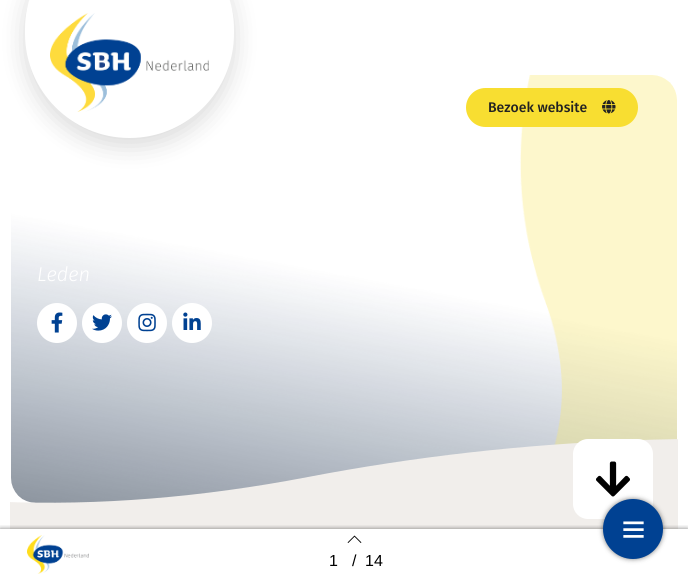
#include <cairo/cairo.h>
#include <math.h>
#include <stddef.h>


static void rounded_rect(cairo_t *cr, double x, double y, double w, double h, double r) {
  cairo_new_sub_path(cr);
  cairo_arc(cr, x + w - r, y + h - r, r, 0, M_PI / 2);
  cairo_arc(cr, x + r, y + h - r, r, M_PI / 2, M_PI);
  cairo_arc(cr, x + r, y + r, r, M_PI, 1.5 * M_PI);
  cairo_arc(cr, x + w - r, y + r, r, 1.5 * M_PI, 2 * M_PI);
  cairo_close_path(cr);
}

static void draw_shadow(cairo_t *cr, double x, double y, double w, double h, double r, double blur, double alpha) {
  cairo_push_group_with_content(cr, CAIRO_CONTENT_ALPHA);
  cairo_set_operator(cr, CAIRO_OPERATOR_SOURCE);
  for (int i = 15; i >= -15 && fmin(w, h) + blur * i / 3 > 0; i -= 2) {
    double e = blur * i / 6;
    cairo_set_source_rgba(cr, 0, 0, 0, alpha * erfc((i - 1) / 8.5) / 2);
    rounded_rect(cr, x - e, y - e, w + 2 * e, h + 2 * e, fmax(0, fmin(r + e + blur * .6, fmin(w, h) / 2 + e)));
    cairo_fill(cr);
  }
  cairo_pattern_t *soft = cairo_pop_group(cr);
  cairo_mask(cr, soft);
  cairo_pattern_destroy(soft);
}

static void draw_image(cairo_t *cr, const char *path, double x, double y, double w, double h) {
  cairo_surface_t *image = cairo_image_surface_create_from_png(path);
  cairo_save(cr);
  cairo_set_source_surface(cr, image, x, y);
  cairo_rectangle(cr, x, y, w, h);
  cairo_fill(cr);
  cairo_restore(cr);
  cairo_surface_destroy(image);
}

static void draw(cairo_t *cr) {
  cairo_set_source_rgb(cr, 1, 1, 1);
  cairo_paint(cr);
  draw_image(cr, "images/3.png", 11, 75, 666, 428);
  cairo_set_source_rgb(cr, 0, 0, 0);
  draw_shadow(cr, 25, -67, 209, 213, 104.5, 12.5, 0.15);
  cairo_set_source_rgb(cr, 1, 1, 1);
  rounded_rect(cr, 25, -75, 209, 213, 104.5);
  cairo_fill(cr);
  draw_image(cr, "images/1.png", 50, 13, 159, 99);
  cairo_set_source_rgb(cr, 248 / 255.0, 222 / 255.0, 49 / 255.0);
  rounded_rect(cr, 467, 89, 170, 37, 18.5);
  cairo_fill_preserve(cr);
  cairo_stroke(cr);
  draw_image(cr, "images/2.png", 602, 100, 14, 14);
  cairo_set_source_rgb(cr, 1, 1, 1);
  cairo_arc(cr, 57, 323, 20, 0, 2 * M_PI);
  cairo_fill(cr);
  draw_image(cr, "images/4.png", 51, 312, 12, 21);
  cairo_arc(cr, 102, 323, 20, 0, 2 * M_PI);
  cairo_fill(cr);
  draw_image(cr, "images/5.png", 92, 314, 20, 17);
  cairo_arc(cr, 147, 323, 20, 0, 2 * M_PI);
  cairo_fill(cr);
  draw_image(cr, "images/6.png", 138, 313, 18, 19);
  cairo_arc(cr, 192, 323, 20, 0, 2 * M_PI);
  cairo_fill(cr);
  draw_image(cr, "images/7.png", 183, 312, 18, 18);
  cairo_save(cr);
  cairo_rectangle(cr, 10, 439, 668, 75);
  cairo_clip(cr);
  cairo_set_source_rgb(cr, 241 / 255.0, 238 / 255.0, 235 / 255.0);
  cairo_set_fill_rule(cr, CAIRO_FILL_RULE_EVEN_ODD);
  cairo_new_path(cr);
  cairo_move_to(cr, 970, 453);
  cairo_curve_to(cr, 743, 428, 522, 436, 308, 477);
  cairo_curve_to(cr, 94, 518, -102, 510, -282, 453);
  cairo_line_to(cr, -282, 514);
  cairo_line_to(cr, 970, 514);
  cairo_close_path(cr);
  cairo_fill(cr);
  cairo_restore(cr);
  cairo_set_source_rgb(cr, 241 / 255.0, 238 / 255.0, 235 / 255.0);
  cairo_rectangle(cr, 10, 514, 668, 15);
  cairo_fill(cr);
  cairo_set_source_rgb(cr, 1, 1, 1);
  rounded_rect(cr, 573, 439, 80, 80, 15);
  cairo_fill(cr);
  draw_image(cr, "images/8.png", 596, 461, 34, 36);
  cairo_save(cr);
  cairo_rectangle(cr, 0, 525, 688, 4);
  cairo_clip(cr);
  cairo_set_source_rgb(cr, 0, 0, 0);
  draw_shadow(cr, 0, 529, 688, 50, 0, 2.5, 0.5);
  cairo_restore(cr);
  draw_image(cr, "images/9.png", 27, 535, 62, 39);
  draw_image(cr, "images/10.png", 347, 535, 15, 8);
  cairo_set_source_rgb(cr, 0, 0, 0);
  draw_shadow(cr, 603, 499, 60, 60, 30, 2.5, 0.5);
  cairo_set_source_rgb(cr, 0, 65 / 255.0, 146 / 255.0);
  cairo_arc(cr, 633, 529, 30, 0, 2 * M_PI);
  cairo_fill(cr);
  draw_image(cr, "images/11.png", 623, 521, 21, 17);
  cairo_select_font_face(cr, "Fira Sans Medium", CAIRO_FONT_SLANT_NORMAL, CAIRO_FONT_WEIGHT_NORMAL);
  cairo_set_font_size(cr, 14);
  cairo_set_source_rgb(cr, 34 / 255.0, 34 / 255.0, 34 / 255.0);
  cairo_move_to(cr, 488, 112);
  cairo_show_text(cr, "Bezoek website");
  cairo_select_font_face(cr, "Fira Sans Light", CAIRO_FONT_SLANT_ITALIC, CAIRO_FONT_WEIGHT_NORMAL);
  cairo_set_font_size(cr, 20);
  cairo_set_source_rgb(cr, 1, 1, 1);
  cairo_move_to(cr, 37, 281);
  cairo_show_text(cr, "Leden");
  cairo_select_font_face(cr, "Liberation Sans", CAIRO_FONT_SLANT_NORMAL, CAIRO_FONT_WEIGHT_NORMAL);
  cairo_set_font_size(cr, 16);
  cairo_set_source_rgb(cr, 0, 0, 0);
  cairo_move_to(cr, 329, 566);
  cairo_show_text(cr, "1");
  cairo_move_to(cr, 352, 566);
  cairo_show_text(cr, "/");
  cairo_move_to(cr, 365, 566);
  cairo_show_text(cr, "14");
}

int main(void) {
  cairo_surface_t *surface = cairo_image_surface_create(CAIRO_FORMAT_RGB24, 688, 579);
  cairo_t *cr = cairo_create(surface);
  cairo_font_options_t *options = cairo_font_options_create();
  cairo_font_options_set_hint_metrics(options, CAIRO_HINT_METRICS_OFF);
  cairo_font_options_set_hint_style(options, CAIRO_HINT_STYLE_NONE);
  cairo_set_font_options(cr, options);
  cairo_set_miter_limit(cr, 4);
  draw(cr);
  cairo_surface_write_to_png(surface, "out.png");
  cairo_font_options_destroy(options);
  cairo_destroy(cr);
  cairo_surface_destroy(surface);
  return 0;
}
